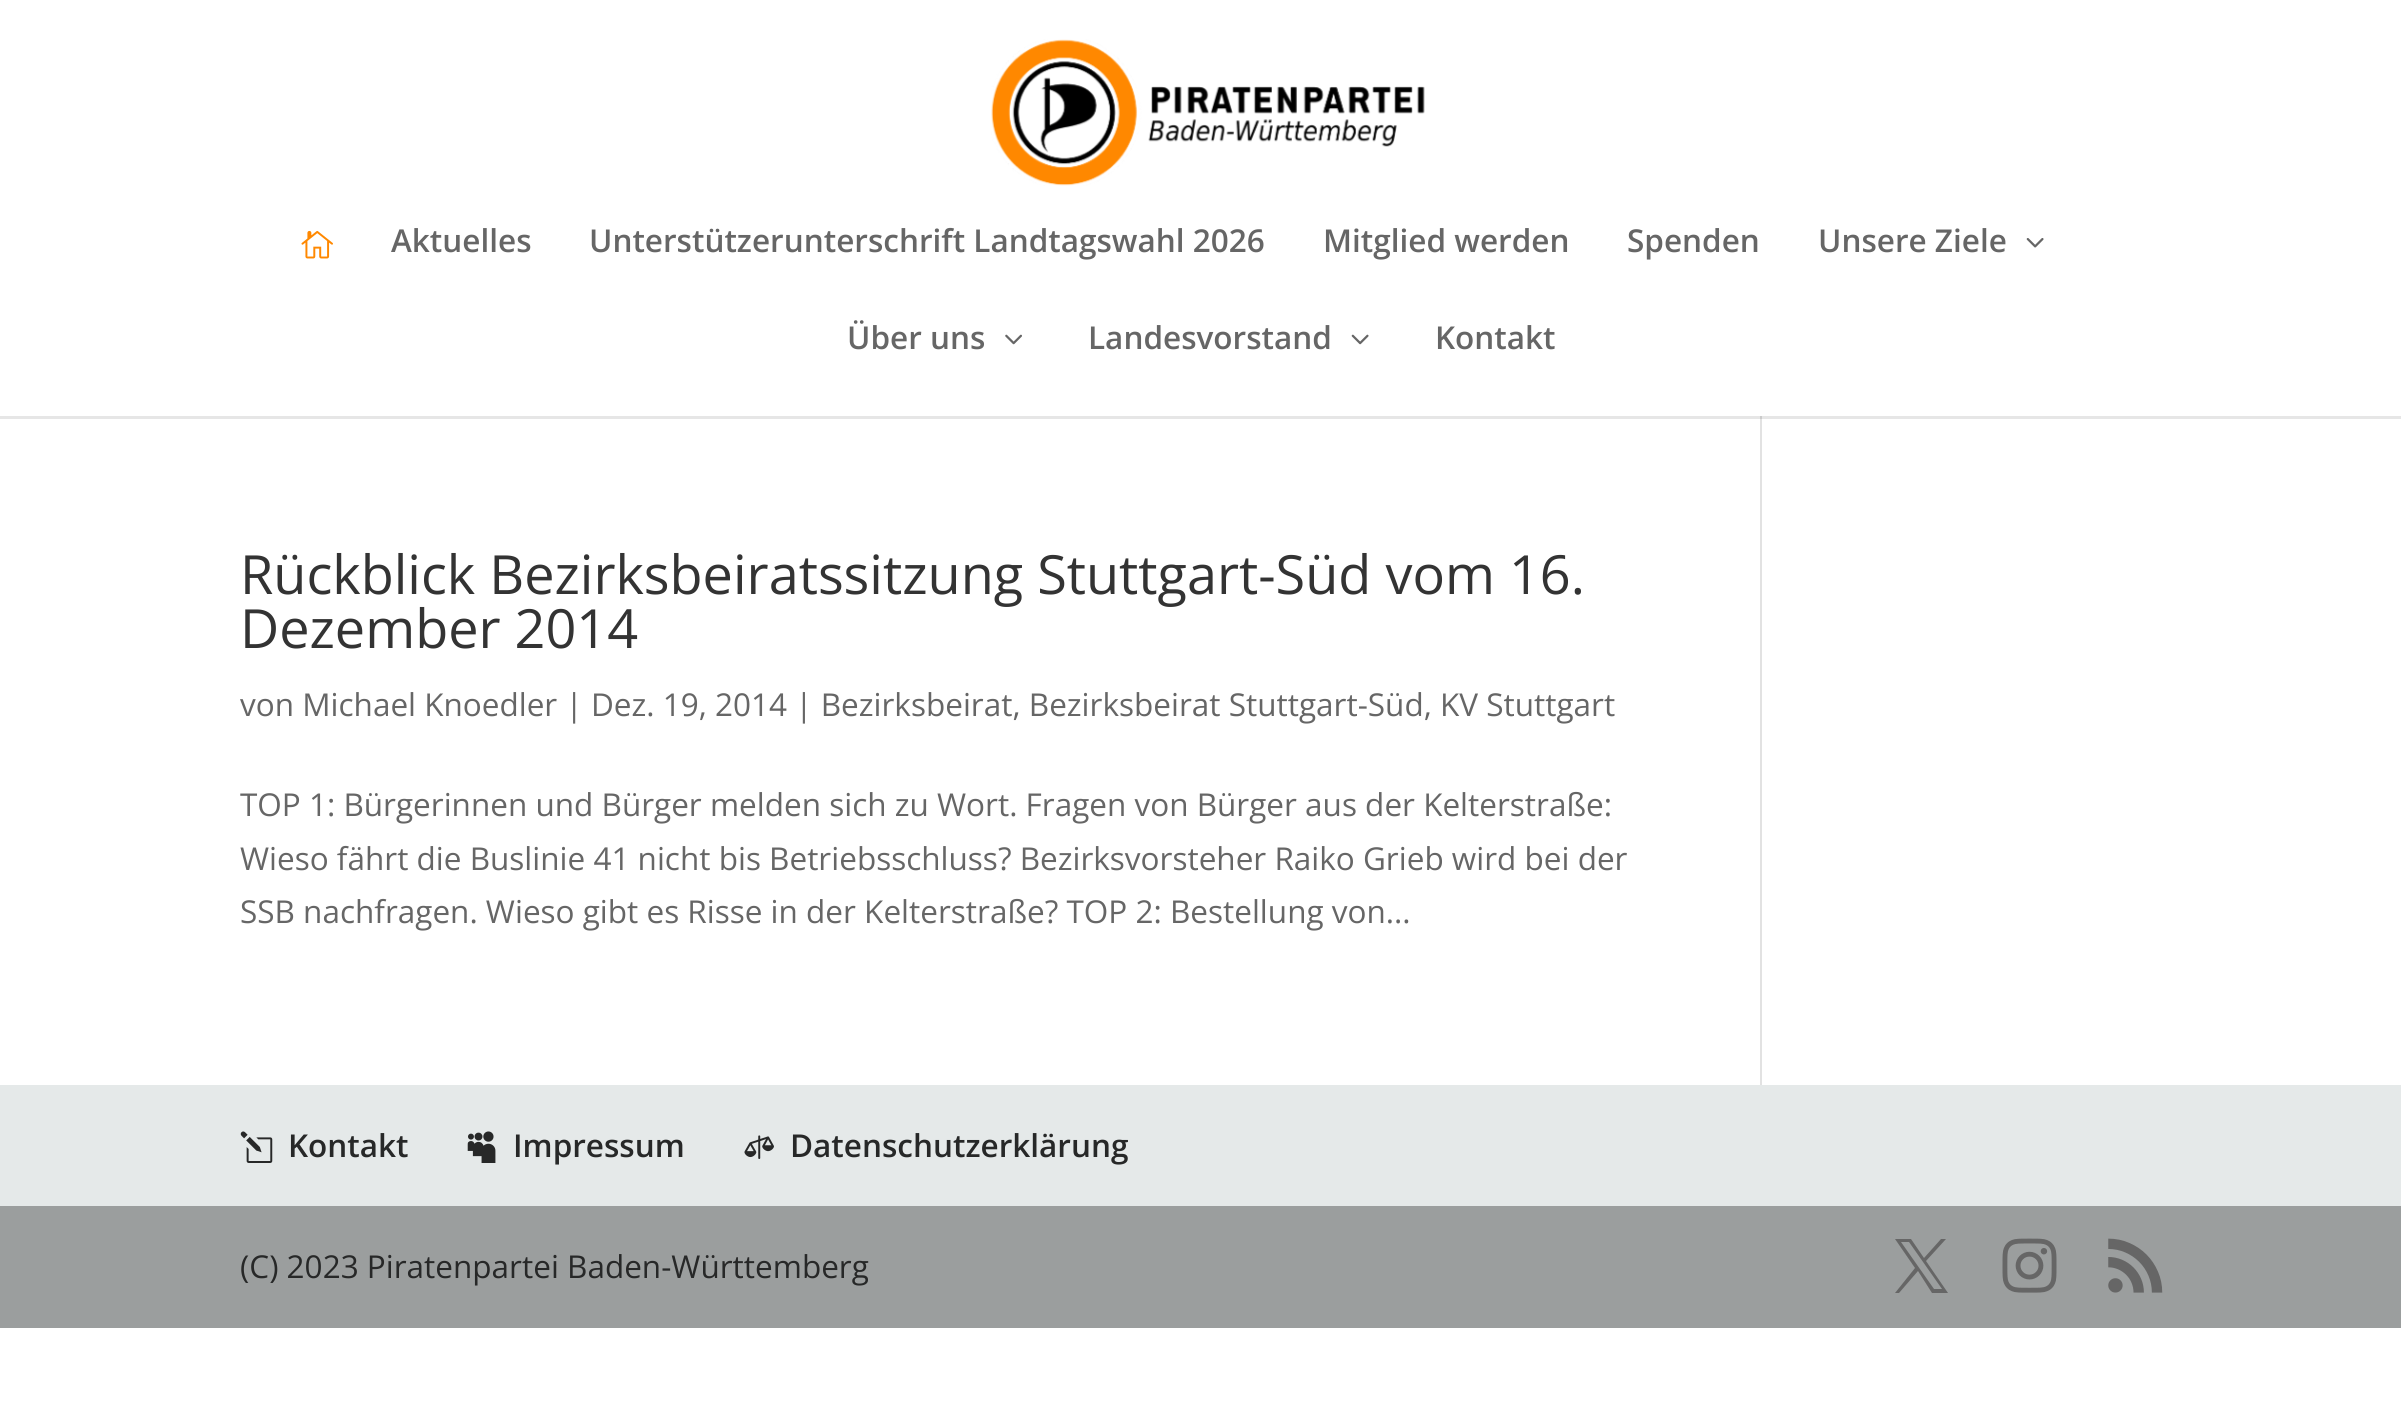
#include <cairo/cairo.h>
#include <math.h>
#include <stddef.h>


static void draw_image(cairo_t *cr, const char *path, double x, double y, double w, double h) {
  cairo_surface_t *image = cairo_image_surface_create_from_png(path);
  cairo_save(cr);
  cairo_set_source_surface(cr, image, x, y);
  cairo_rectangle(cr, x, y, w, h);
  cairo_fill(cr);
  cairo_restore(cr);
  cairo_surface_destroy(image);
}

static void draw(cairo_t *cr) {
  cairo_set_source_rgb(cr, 1, 1, 1);
  cairo_paint(cr);
  cairo_set_source_rgb(cr, 230 / 255.0, 230 / 255.0, 230 / 255.0);
  cairo_rectangle(cr, 0, 416, 2401, 3);
  cairo_fill(cr);
  draw_image(cr, "images/1.png", 991, 39, 434, 147);
  draw_image(cr, "images/2.png", 301, 230, 32, 29);
  draw_image(cr, "images/3.png", 2026, 238, 18, 10);
  draw_image(cr, "images/4.png", 1005, 334, 17, 11);
  draw_image(cr, "images/5.png", 1351, 334, 18, 11);
  cairo_set_source_rgb(cr, 226 / 255.0, 226 / 255.0, 226 / 255.0);
  cairo_rectangle(cr, 1760, 416, 2, 669);
  cairo_fill(cr);
  cairo_set_source_rgb(cr, 203 / 255.0, 203 / 255.0, 203 / 255.0);
  cairo_rectangle(cr, 1760, 416, 2, 3);
  cairo_fill(cr);
  cairo_set_source_rgb(cr, 229 / 255.0, 233 / 255.0, 233 / 255.0);
  cairo_rectangle(cr, 0, 1085, 2401, 121);
  cairo_fill(cr);
  draw_image(cr, "images/6.png", 240, 1131, 33, 32);
  draw_image(cr, "images/7.png", 467, 1131, 29, 32);
  draw_image(cr, "images/8.png", 744, 1135, 30, 24);
  cairo_set_source_rgb(cr, 155 / 255.0, 158 / 255.0, 158 / 255.0);
  cairo_rectangle(cr, 0, 1206, 2401, 122);
  cairo_fill(cr);
  cairo_set_source_rgb(cr, 102 / 255.0, 102 / 255.0, 102 / 255.0);
  cairo_new_path(cr);
  cairo_move_to(cr, 1895, 1239);
  cairo_line_to(cr, 1915, 1268);
  cairo_line_to(cr, 1895, 1293);
  cairo_line_to(cr, 1899, 1293);
  cairo_line_to(cr, 1918, 1271);
  cairo_line_to(cr, 1932, 1293);
  cairo_line_to(cr, 1948, 1293);
  cairo_line_to(cr, 1926, 1261);
  cairo_line_to(cr, 1946, 1239);
  cairo_line_to(cr, 1941, 1239);
  cairo_line_to(cr, 1924, 1258);
  cairo_line_to(cr, 1911, 1239);
  cairo_close_path(cr);
  cairo_move_to(cr, 1901, 1242);
  cairo_line_to(cr, 1909, 1242);
  cairo_line_to(cr, 1942, 1289);
  cairo_line_to(cr, 1934, 1289);
  cairo_close_path(cr);
  cairo_fill(cr);
  draw_image(cr, "images/9.png", 2002, 1238, 55, 55);
  draw_image(cr, "images/10.png", 2108, 1238, 55, 55);
  cairo_select_font_face(cr, "Open Sans SemiBold", CAIRO_FONT_SLANT_NORMAL, CAIRO_FONT_WEIGHT_NORMAL);
  cairo_set_font_size(cr, 31.5);
  cairo_move_to(cr, 391, 252);
  cairo_show_text(cr, "Aktuelles");
  cairo_move_to(cr, 589, 252);
  cairo_show_text(cr, "Unterstützerunterschrift Landtagswahl 2026");
  cairo_move_to(cr, 1323, 252);
  cairo_show_text(cr, "Mitglied werden");
  cairo_move_to(cr, 1627, 252);
  cairo_show_text(cr, "Spenden");
  cairo_move_to(cr, 1818, 252);
  cairo_show_text(cr, "Unsere Ziele");
  cairo_move_to(cr, 847, 349);
  cairo_show_text(cr, "Über uns");
  cairo_move_to(cr, 1088, 349);
  cairo_show_text(cr, "Landesvorstand");
  cairo_move_to(cr, 1435, 349);
  cairo_show_text(cr, "Kontakt");
  cairo_select_font_face(cr, "Open Sans", CAIRO_FONT_SLANT_NORMAL, CAIRO_FONT_WEIGHT_NORMAL);
  cairo_set_font_size(cr, 54);
  cairo_set_source_rgb(cr, 51 / 255.0, 51 / 255.0, 51 / 255.0);
  cairo_move_to(cr, 240, 594);
  cairo_show_text(cr, "Rückblick Bezirksbeiratssitzung Stuttgart-Süd vom 16.");
  cairo_move_to(cr, 240, 648);
  cairo_show_text(cr, "Dezember 2014");
  cairo_set_font_size(cr, 31.5);
  cairo_set_source_rgb(cr, 102 / 255.0, 102 / 255.0, 102 / 255.0);
  cairo_move_to(cr, 240, 716);
  cairo_show_text(cr, "von Michael Knoedler | Dez. 19, 2014 | Bezirksbeirat, Bezirksbeirat Stuttgart-Süd, KV Stuttgart");
  cairo_move_to(cr, 240, 816);
  cairo_show_text(cr, "TOP 1: Bürgerinnen und Bürger melden sich zu Wort. Fragen von Bürger aus der Kelterstraße:");
  cairo_move_to(cr, 240, 870);
  cairo_show_text(cr, "Wieso fährt die Buslinie 41 nicht bis Betriebsschluss? Bezirksvorsteher Raiko Grieb wird bei der");
  cairo_move_to(cr, 240, 923);
  cairo_show_text(cr, "SSB nachfragen. Wieso gibt es Risse in der Kelterstraße? TOP 2: Bestellung von...");
  cairo_select_font_face(cr, "Open Sans SemiBold", CAIRO_FONT_SLANT_NORMAL, CAIRO_FONT_WEIGHT_NORMAL);
  cairo_set_source_rgb(cr, 39 / 255.0, 40 / 255.0, 40 / 255.0);
  cairo_move_to(cr, 288, 1157);
  cairo_show_text(cr, "Kontakt");
  cairo_move_to(cr, 513, 1157);
  cairo_show_text(cr, "Impressum");
  cairo_move_to(cr, 790, 1157);
  cairo_show_text(cr, "Datenschutzerklärung");
  cairo_select_font_face(cr, "Open Sans", CAIRO_FONT_SLANT_NORMAL, CAIRO_FONT_WEIGHT_NORMAL);
  cairo_move_to(cr, 240, 1278);
  cairo_show_text(cr, "(C) 2023 Piratenpartei Baden-Württemberg");
}

int main(void) {
  cairo_surface_t *surface = cairo_image_surface_create(CAIRO_FORMAT_RGB24, 2401, 1423);
  cairo_t *cr = cairo_create(surface);
  cairo_font_options_t *options = cairo_font_options_create();
  cairo_font_options_set_hint_metrics(options, CAIRO_HINT_METRICS_OFF);
  cairo_font_options_set_hint_style(options, CAIRO_HINT_STYLE_NONE);
  cairo_set_font_options(cr, options);
  cairo_set_miter_limit(cr, 4);
  draw(cr);
  cairo_surface_write_to_png(surface, "out.png");
  cairo_font_options_destroy(options);
  cairo_destroy(cr);
  cairo_surface_destroy(surface);
  return 0;
}
